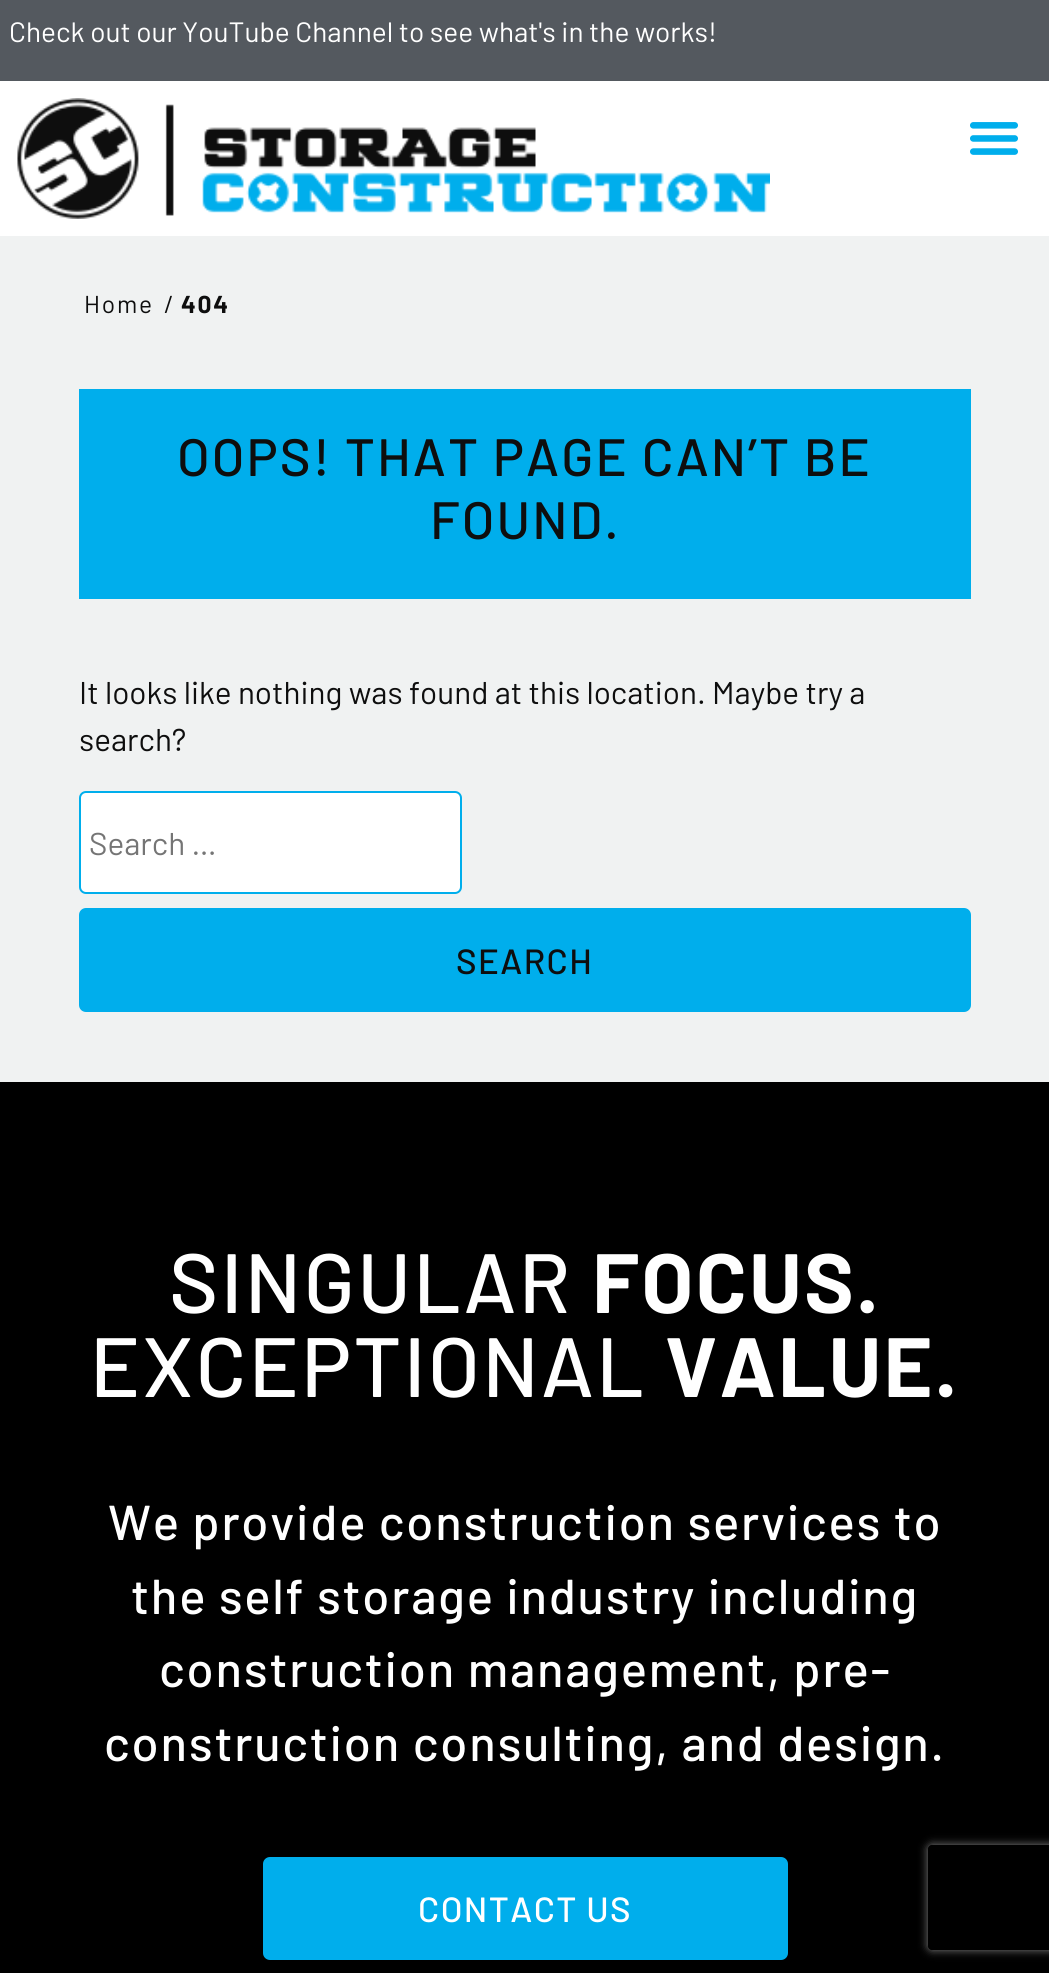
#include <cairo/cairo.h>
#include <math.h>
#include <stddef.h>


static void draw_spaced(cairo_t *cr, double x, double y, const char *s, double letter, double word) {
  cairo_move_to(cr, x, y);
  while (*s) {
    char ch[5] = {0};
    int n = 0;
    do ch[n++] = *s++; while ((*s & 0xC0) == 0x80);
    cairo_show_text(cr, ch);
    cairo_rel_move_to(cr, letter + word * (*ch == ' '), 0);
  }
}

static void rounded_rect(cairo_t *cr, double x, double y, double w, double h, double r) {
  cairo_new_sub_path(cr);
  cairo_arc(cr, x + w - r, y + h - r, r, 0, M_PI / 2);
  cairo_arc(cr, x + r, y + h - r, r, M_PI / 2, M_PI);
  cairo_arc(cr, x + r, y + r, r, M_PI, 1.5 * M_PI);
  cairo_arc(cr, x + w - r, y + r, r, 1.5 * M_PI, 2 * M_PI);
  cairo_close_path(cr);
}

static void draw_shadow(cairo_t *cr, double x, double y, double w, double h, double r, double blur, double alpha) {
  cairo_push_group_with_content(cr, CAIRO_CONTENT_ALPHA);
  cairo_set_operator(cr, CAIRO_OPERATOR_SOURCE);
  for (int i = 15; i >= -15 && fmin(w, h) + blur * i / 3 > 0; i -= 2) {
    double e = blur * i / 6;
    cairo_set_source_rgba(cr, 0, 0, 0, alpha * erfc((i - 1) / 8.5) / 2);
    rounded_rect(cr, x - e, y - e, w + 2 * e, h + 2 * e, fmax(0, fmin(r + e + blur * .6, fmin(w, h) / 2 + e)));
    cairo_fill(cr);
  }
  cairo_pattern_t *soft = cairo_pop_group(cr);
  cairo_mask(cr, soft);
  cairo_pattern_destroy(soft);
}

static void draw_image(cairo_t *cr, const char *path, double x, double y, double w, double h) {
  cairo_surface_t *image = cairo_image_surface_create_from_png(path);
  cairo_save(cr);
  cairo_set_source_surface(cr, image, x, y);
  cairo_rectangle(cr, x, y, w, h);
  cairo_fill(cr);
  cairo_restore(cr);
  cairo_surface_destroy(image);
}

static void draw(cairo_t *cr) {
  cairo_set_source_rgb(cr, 240 / 255.0, 242 / 255.0, 242 / 255.0);
  cairo_paint(cr);
  cairo_set_source_rgb(cr, 84 / 255.0, 89 / 255.0, 95 / 255.0);
  cairo_rectangle(cr, 0, 0, 1049, 81);
  cairo_fill(cr);
  cairo_set_source_rgb(cr, 1, 1, 1);
  cairo_rectangle(cr, 0, 81, 1049, 155);
  cairo_fill(cr);
  draw_image(cr, "images/1.png", 17, 98, 753, 121);
  draw_image(cr, "images/2.png", 970, 122, 48, 33);
  cairo_set_source_rgb(cr, 0, 174 / 255.0, 236 / 255.0);
  cairo_rectangle(cr, 79, 389, 892, 210);
  cairo_fill(cr);
  cairo_set_source_rgb(cr, 1, 1, 1);
  rounded_rect(cr, 80, 792, 381, 101, 6);
  cairo_fill_preserve(cr);
  cairo_set_source_rgb(cr, 0, 174 / 255.0, 236 / 255.0);
  cairo_stroke(cr);
  rounded_rect(cr, 79, 908, 892, 104, 7);
  cairo_fill(cr);
  cairo_set_source_rgb(cr, 0, 0, 0);
  cairo_rectangle(cr, 0, 1082, 1049, 891);
  cairo_fill(cr);
  cairo_set_source_rgb(cr, 0, 174 / 255.0, 236 / 255.0);
  rounded_rect(cr, 263, 1857, 525, 103, 7);
  cairo_fill(cr);
  cairo_save(cr);
  cairo_set_fill_rule(cr, CAIRO_FILL_RULE_EVEN_ODD);
  cairo_new_path(cr);
  cairo_move_to(cr, 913, 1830);
  cairo_line_to(cr, 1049, 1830);
  cairo_line_to(cr, 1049, 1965);
  cairo_line_to(cr, 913, 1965);
  cairo_close_path(cr);
  cairo_move_to(cr, 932, 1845);
  cairo_line_to(cr, 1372, 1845);
  cairo_curve_to(cr, 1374, 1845, 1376, 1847, 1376, 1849);
  cairo_line_to(cr, 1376, 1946);
  cairo_curve_to(cr, 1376, 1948, 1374, 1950, 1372, 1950);
  cairo_line_to(cr, 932, 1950);
  cairo_curve_to(cr, 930, 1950, 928, 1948, 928, 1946);
  cairo_line_to(cr, 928, 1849);
  cairo_curve_to(cr, 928, 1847, 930, 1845, 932, 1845);
  cairo_close_path(cr);
  cairo_clip(cr);
  cairo_set_source_rgb(cr, 128 / 255.0, 128 / 255.0, 128 / 255.0);
  draw_shadow(cr, 928, 1845, 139, 105, 4, 4.5, 1);
  cairo_restore(cr);
  cairo_select_font_face(cr, "Barlow", CAIRO_FONT_SLANT_NORMAL, CAIRO_FONT_WEIGHT_NORMAL);
  cairo_set_font_size(cr, 28);
  cairo_set_source_rgb(cr, 1, 1, 1);
  cairo_move_to(cr, 9, 42);
  cairo_show_text(cr, "Check out our YouTube Channel to see what's in the works!");
  cairo_set_font_size(cr, 24.5);
  cairo_set_source_rgb(cr, 14 / 255.0, 14 / 255.0, 14 / 255.0);
  draw_spaced(cr, 84, 313, "Home", 1.75, 0);
  draw_spaced(cr, 164, 313, "/", 1.75, 0);
  cairo_select_font_face(cr, "Barlow", CAIRO_FONT_SLANT_NORMAL, CAIRO_FONT_WEIGHT_BOLD);
  draw_spaced(cr, 181, 313, "404", 1.75, 0);
  cairo_select_font_face(cr, "Barlow Medium", CAIRO_FONT_SLANT_NORMAL, CAIRO_FONT_WEIGHT_NORMAL);
  cairo_set_font_size(cr, 52.5);
  draw_spaced(cr, 177, 476, "OOPS! THAT PAGE CAN’T BE", 2.1, 0);
  draw_spaced(cr, 430, 539, "FOUND.", 2.1, 0);
  cairo_select_font_face(cr, "Barlow", CAIRO_FONT_SLANT_NORMAL, CAIRO_FONT_WEIGHT_NORMAL);
  cairo_set_font_size(cr, 31.5);
  cairo_move_to(cr, 79, 704);
  cairo_show_text(cr, "It looks like nothing was found at this location. Maybe try a");
  cairo_move_to(cr, 79, 751);
  cairo_show_text(cr, "search?");
  cairo_set_source_rgb(cr, 117 / 255.0, 117 / 255.0, 117 / 255.0);
  cairo_move_to(cr, 89, 855);
  cairo_show_text(cr, "Search …");
  cairo_select_font_face(cr, "Barlow Medium", CAIRO_FONT_SLANT_NORMAL, CAIRO_FONT_WEIGHT_NORMAL);
  cairo_set_font_size(cr, 35);
  cairo_set_source_rgb(cr, 14 / 255.0, 14 / 255.0, 14 / 255.0);
  draw_spaced(cr, 456, 974, "SEARCH", 1.4, 0);
  cairo_set_font_size(cr, 84);
  cairo_set_source_rgb(cr, 1, 1, 1);
  draw_spaced(cr, 169, 1313, "SINGULAR", 2.25, 0);
  cairo_select_font_face(cr, "Barlow", CAIRO_FONT_SLANT_NORMAL, CAIRO_FONT_WEIGHT_BOLD);
  draw_spaced(cr, 592, 1313, "FOCUS.", 2.25, 0);
  cairo_select_font_face(cr, "Barlow Medium", CAIRO_FONT_SLANT_NORMAL, CAIRO_FONT_WEIGHT_NORMAL);
  draw_spaced(cr, 90, 1397, "EXCEPTIONAL", 2.25, 0);
  cairo_select_font_face(cr, "Barlow", CAIRO_FONT_SLANT_NORMAL, CAIRO_FONT_WEIGHT_BOLD);
  draw_spaced(cr, 665, 1397, "VALUE.", 2.25, 0);
  cairo_select_font_face(cr, "Barlow Medium", CAIRO_FONT_SLANT_NORMAL, CAIRO_FONT_WEIGHT_NORMAL);
  cairo_set_font_size(cr, 49);
  draw_spaced(cr, 108, 1540, "We provide construction services to", 1.75, 0);
  draw_spaced(cr, 131, 1614, "the self storage industry including", 1.75, 0);
  draw_spaced(cr, 159, 1687, "construction management, pre-", 1.75, 0);
  draw_spaced(cr, 104, 1761, "construction consulting, and design.", 1.75, 0);
  cairo_set_font_size(cr, 35);
  draw_spaced(cr, 418, 1922, "CONTACT US", 1.4, 0);
}

int main(void) {
  cairo_surface_t *surface = cairo_image_surface_create(CAIRO_FORMAT_RGB24, 1049, 1973);
  cairo_t *cr = cairo_create(surface);
  cairo_font_options_t *options = cairo_font_options_create();
  cairo_font_options_set_hint_metrics(options, CAIRO_HINT_METRICS_OFF);
  cairo_font_options_set_hint_style(options, CAIRO_HINT_STYLE_NONE);
  cairo_set_font_options(cr, options);
  cairo_set_miter_limit(cr, 4);
  draw(cr);
  cairo_surface_write_to_png(surface, "out.png");
  cairo_font_options_destroy(options);
  cairo_destroy(cr);
  cairo_surface_destroy(surface);
  return 0;
}
